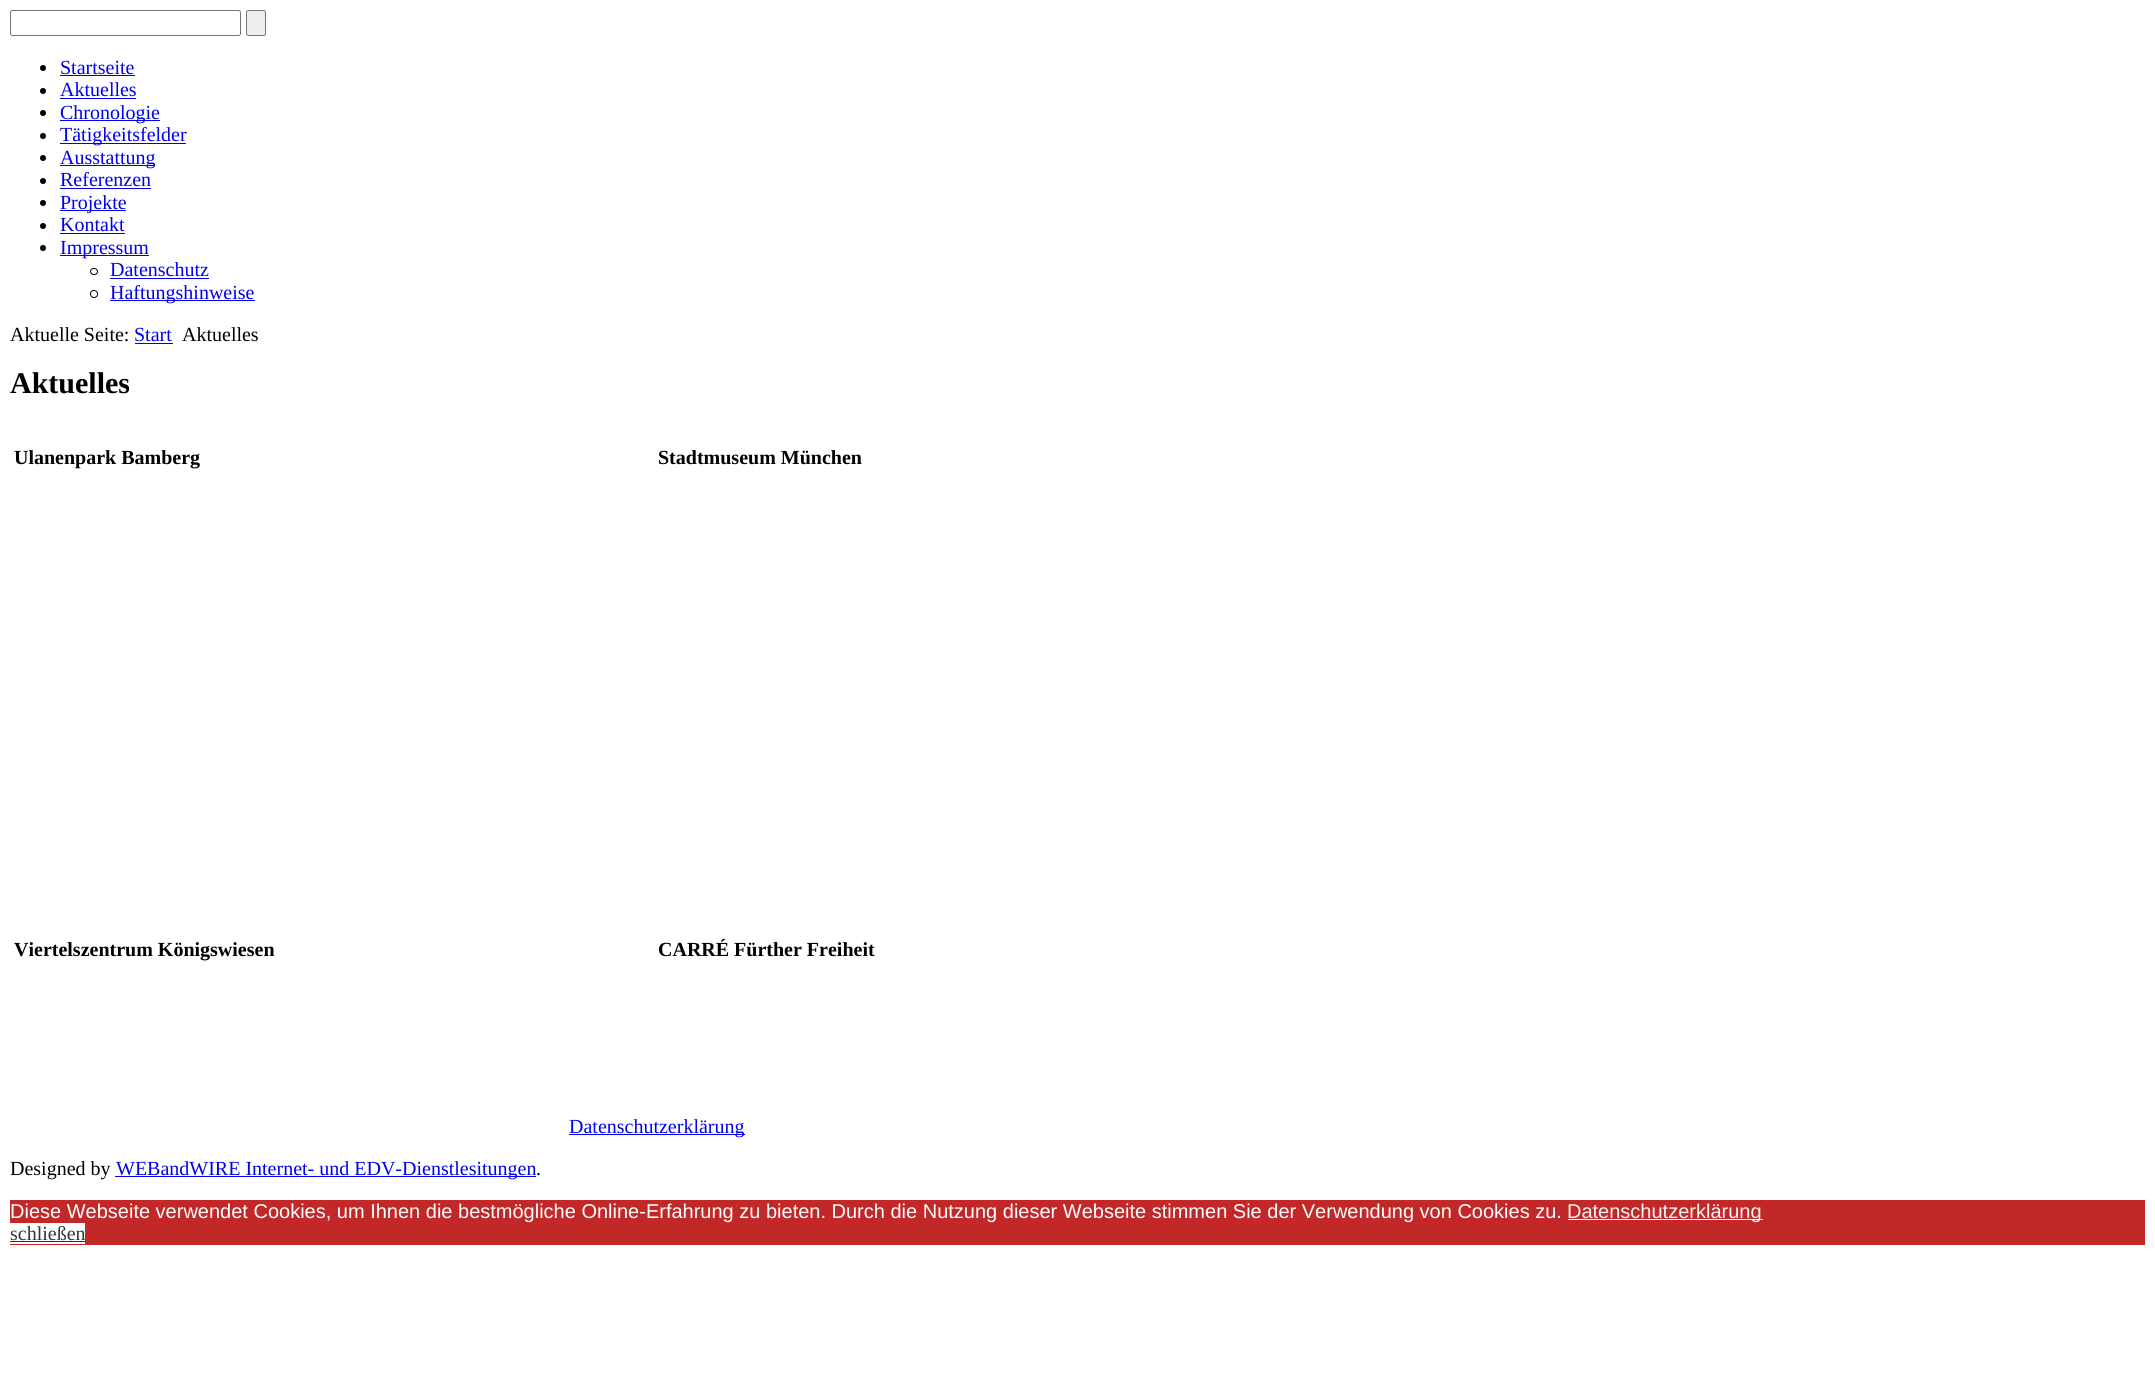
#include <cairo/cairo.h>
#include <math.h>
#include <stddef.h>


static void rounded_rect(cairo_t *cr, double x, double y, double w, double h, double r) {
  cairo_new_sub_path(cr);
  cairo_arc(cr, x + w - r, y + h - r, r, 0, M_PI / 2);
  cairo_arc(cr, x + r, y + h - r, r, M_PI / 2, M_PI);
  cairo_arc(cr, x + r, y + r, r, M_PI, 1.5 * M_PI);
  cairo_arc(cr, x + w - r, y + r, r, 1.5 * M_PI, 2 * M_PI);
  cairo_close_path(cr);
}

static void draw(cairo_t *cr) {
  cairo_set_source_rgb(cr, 1, 1, 1);
  cairo_paint(cr);
  rounded_rect(cr, 10.5, 10.5, 230, 25, 2);
  cairo_set_source_rgb(cr, 118 / 255.0, 118 / 255.0, 118 / 255.0);
  cairo_set_line_width(cr, 1);
  cairo_stroke(cr);
  cairo_set_source_rgb(cr, 239 / 255.0, 239 / 255.0, 239 / 255.0);
  rounded_rect(cr, 246.5, 10.5, 19, 25, 2);
  cairo_fill_preserve(cr);
  cairo_set_source_rgb(cr, 118 / 255.0, 118 / 255.0, 118 / 255.0);
  cairo_stroke(cr);
  cairo_set_source_rgb(cr, 0, 0, 0);
  cairo_arc(cr, 43, 68, 3, 0, 2 * M_PI);
  cairo_fill(cr);
  cairo_set_source_rgb(cr, 0, 0, 238 / 255.0);
  cairo_rectangle(cr, 60, 75, 75, 1);
  cairo_fill(cr);
  cairo_set_source_rgb(cr, 0, 0, 0);
  cairo_arc(cr, 43, 91, 3, 0, 2 * M_PI);
  cairo_fill(cr);
  cairo_set_source_rgb(cr, 0, 0, 238 / 255.0);
  cairo_rectangle(cr, 60, 98, 76, 1);
  cairo_fill(cr);
  cairo_set_source_rgb(cr, 0, 0, 0);
  cairo_arc(cr, 43, 113, 3, 0, 2 * M_PI);
  cairo_fill(cr);
  cairo_set_source_rgb(cr, 0, 0, 238 / 255.0);
  cairo_rectangle(cr, 60, 120, 100, 1);
  cairo_fill(cr);
  cairo_set_source_rgb(cr, 0, 0, 0);
  cairo_arc(cr, 43, 136, 3, 0, 2 * M_PI);
  cairo_fill(cr);
  cairo_set_source_rgb(cr, 0, 0, 238 / 255.0);
  cairo_rectangle(cr, 60, 143, 126, 1);
  cairo_fill(cr);
  cairo_set_source_rgb(cr, 0, 0, 0);
  cairo_arc(cr, 43, 158, 3, 0, 2 * M_PI);
  cairo_fill(cr);
  cairo_set_source_rgb(cr, 0, 0, 238 / 255.0);
  cairo_rectangle(cr, 60, 165, 95, 1);
  cairo_fill(cr);
  cairo_set_source_rgb(cr, 0, 0, 0);
  cairo_arc(cr, 43, 181, 3, 0, 2 * M_PI);
  cairo_fill(cr);
  cairo_set_source_rgb(cr, 0, 0, 238 / 255.0);
  cairo_rectangle(cr, 60, 188, 91, 1);
  cairo_fill(cr);
  cairo_set_source_rgb(cr, 0, 0, 0);
  cairo_arc(cr, 43, 203, 3, 0, 2 * M_PI);
  cairo_fill(cr);
  cairo_set_source_rgb(cr, 0, 0, 238 / 255.0);
  cairo_rectangle(cr, 60, 210, 66, 1);
  cairo_fill(cr);
  cairo_set_source_rgb(cr, 0, 0, 0);
  cairo_arc(cr, 43, 226, 3, 0, 2 * M_PI);
  cairo_fill(cr);
  cairo_set_source_rgb(cr, 0, 0, 238 / 255.0);
  cairo_rectangle(cr, 60, 233, 65, 1);
  cairo_fill(cr);
  cairo_set_source_rgb(cr, 0, 0, 0);
  cairo_arc(cr, 43, 248, 3, 0, 2 * M_PI);
  cairo_fill(cr);
  cairo_set_source_rgb(cr, 0, 0, 238 / 255.0);
  cairo_rectangle(cr, 60, 255, 89, 1);
  cairo_fill(cr);
  rounded_rect(cr, 90.5, 268.5, 7, 6, 3);
  cairo_set_source_rgb(cr, 0, 0, 0);
  cairo_stroke(cr);
  cairo_set_source_rgb(cr, 0, 0, 238 / 255.0);
  cairo_rectangle(cr, 110, 278, 99, 1);
  cairo_fill(cr);
  cairo_arc(cr, 94, 294, 3.5, 0, 2 * M_PI);
  cairo_set_source_rgb(cr, 0, 0, 0);
  cairo_stroke(cr);
  cairo_set_source_rgb(cr, 0, 0, 238 / 255.0);
  cairo_rectangle(cr, 110, 300, 145, 1);
  cairo_fill(cr);
  cairo_rectangle(cr, 135, 343, 38, 1);
  cairo_fill(cr);
  cairo_rectangle(cr, 569, 1134, 176, 1);
  cairo_fill(cr);
  cairo_rectangle(cr, 115, 1176, 421, 1);
  cairo_fill(cr);
  cairo_set_source_rgb(cr, 195 / 255.0, 40 / 255.0, 40 / 255.0);
  cairo_rectangle(cr, 10, 1200, 2135, 45);
  cairo_fill(cr);
  cairo_set_source_rgb(cr, 245 / 255.0, 245 / 255.0, 245 / 255.0);
  cairo_rectangle(cr, 1568, 1219, 195, 1);
  cairo_fill(cr);
  cairo_set_source_rgb(cr, 1, 1, 1);
  cairo_rectangle(cr, 10, 1223, 75, 21);
  cairo_fill(cr);
  cairo_set_source_rgb(cr, 51 / 255.0, 51 / 255.0, 51 / 255.0);
  cairo_rectangle(cr, 10, 1241, 75, 1);
  cairo_fill(cr);
  cairo_select_font_face(cr, "Liberation Serif", CAIRO_FONT_SLANT_NORMAL, CAIRO_FONT_WEIGHT_NORMAL);
  cairo_set_font_size(cr, 20);
  cairo_set_source_rgb(cr, 0, 0, 238 / 255.0);
  cairo_move_to(cr, 60, 74);
  cairo_show_text(cr, "Startseite");
  cairo_move_to(cr, 60, 96);
  cairo_show_text(cr, "Aktuelles");
  cairo_move_to(cr, 60, 119);
  cairo_show_text(cr, "Chronologie");
  cairo_move_to(cr, 60, 141);
  cairo_show_text(cr, "Tätigkeitsfelder");
  cairo_move_to(cr, 60, 164);
  cairo_show_text(cr, "Ausstattung");
  cairo_move_to(cr, 60, 186);
  cairo_show_text(cr, "Referenzen");
  cairo_move_to(cr, 60, 209);
  cairo_show_text(cr, "Projekte");
  cairo_move_to(cr, 60, 231);
  cairo_show_text(cr, "Kontakt");
  cairo_move_to(cr, 60, 254);
  cairo_show_text(cr, "Impressum");
  cairo_move_to(cr, 110, 276);
  cairo_show_text(cr, "Datenschutz");
  cairo_move_to(cr, 110, 299);
  cairo_show_text(cr, "Haftungshinweise");
  cairo_set_source_rgb(cr, 0, 0, 0);
  cairo_move_to(cr, 10, 341);
  cairo_show_text(cr, "Aktuelle Seite:");
  cairo_set_source_rgb(cr, 0, 0, 238 / 255.0);
  cairo_move_to(cr, 134, 341);
  cairo_show_text(cr, "Start");
  cairo_set_source_rgb(cr, 0, 0, 0);
  cairo_move_to(cr, 182, 341);
  cairo_show_text(cr, "Aktuelles");
  cairo_select_font_face(cr, "Liberation Serif", CAIRO_FONT_SLANT_NORMAL, CAIRO_FONT_WEIGHT_BOLD);
  cairo_set_font_size(cr, 30);
  cairo_move_to(cr, 10, 393);
  cairo_show_text(cr, "Aktuelles");
  cairo_set_font_size(cr, 20);
  cairo_move_to(cr, 14, 464);
  cairo_show_text(cr, "Ulanenpark Bamberg");
  cairo_move_to(cr, 658, 464);
  cairo_show_text(cr, "Stadtmuseum München");
  cairo_move_to(cr, 14, 956);
  cairo_show_text(cr, "Viertelszentrum Königswiesen");
  cairo_move_to(cr, 658, 956);
  cairo_show_text(cr, "CARRÉ Fürther Freiheit");
  cairo_select_font_face(cr, "Liberation Serif", CAIRO_FONT_SLANT_NORMAL, CAIRO_FONT_WEIGHT_NORMAL);
  cairo_set_source_rgb(cr, 0, 0, 238 / 255.0);
  cairo_move_to(cr, 569, 1133);
  cairo_show_text(cr, "Datenschutzerklärung");
  cairo_set_source_rgb(cr, 0, 0, 0);
  cairo_move_to(cr, 10, 1175);
  cairo_show_text(cr, "Designed by");
  cairo_set_source_rgb(cr, 0, 0, 238 / 255.0);
  cairo_move_to(cr, 116, 1175);
  cairo_show_text(cr, "WEBandWIRE Internet- und EDV-Dienstlesitungen");
  cairo_set_source_rgb(cr, 0, 0, 0);
  cairo_move_to(cr, 536, 1175);
  cairo_show_text(cr, ".");
  cairo_select_font_face(cr, "Liberation Sans", CAIRO_FONT_SLANT_NORMAL, CAIRO_FONT_WEIGHT_NORMAL);
  cairo_set_source_rgb(cr, 1, 1, 1);
  cairo_move_to(cr, 10, 1218);
  cairo_show_text(cr, "Diese Webseite verwendet Cookies, um Ihnen die bestmögliche Online-Erfahrung zu bieten. Durch die Nutzung dieser Webseite stimmen Sie der Verwendung von Cookies zu.");
  cairo_set_source_rgb(cr, 245 / 255.0, 245 / 255.0, 245 / 255.0);
  cairo_move_to(cr, 1567, 1218);
  cairo_show_text(cr, "Datenschutzerklärung");
  cairo_select_font_face(cr, "Liberation Serif", CAIRO_FONT_SLANT_NORMAL, CAIRO_FONT_WEIGHT_NORMAL);
  cairo_set_source_rgb(cr, 51 / 255.0, 51 / 255.0, 51 / 255.0);
  cairo_move_to(cr, 10, 1240);
  cairo_show_text(cr, "schließen");
}

int main(void) {
  cairo_surface_t *surface = cairo_image_surface_create(CAIRO_FORMAT_RGB24, 2155, 1398);
  cairo_t *cr = cairo_create(surface);
  cairo_font_options_t *options = cairo_font_options_create();
  cairo_font_options_set_hint_metrics(options, CAIRO_HINT_METRICS_OFF);
  cairo_font_options_set_hint_style(options, CAIRO_HINT_STYLE_NONE);
  cairo_set_font_options(cr, options);
  cairo_set_miter_limit(cr, 4);
  draw(cr);
  cairo_surface_write_to_png(surface, "out.png");
  cairo_font_options_destroy(options);
  cairo_destroy(cr);
  cairo_surface_destroy(surface);
  return 0;
}
